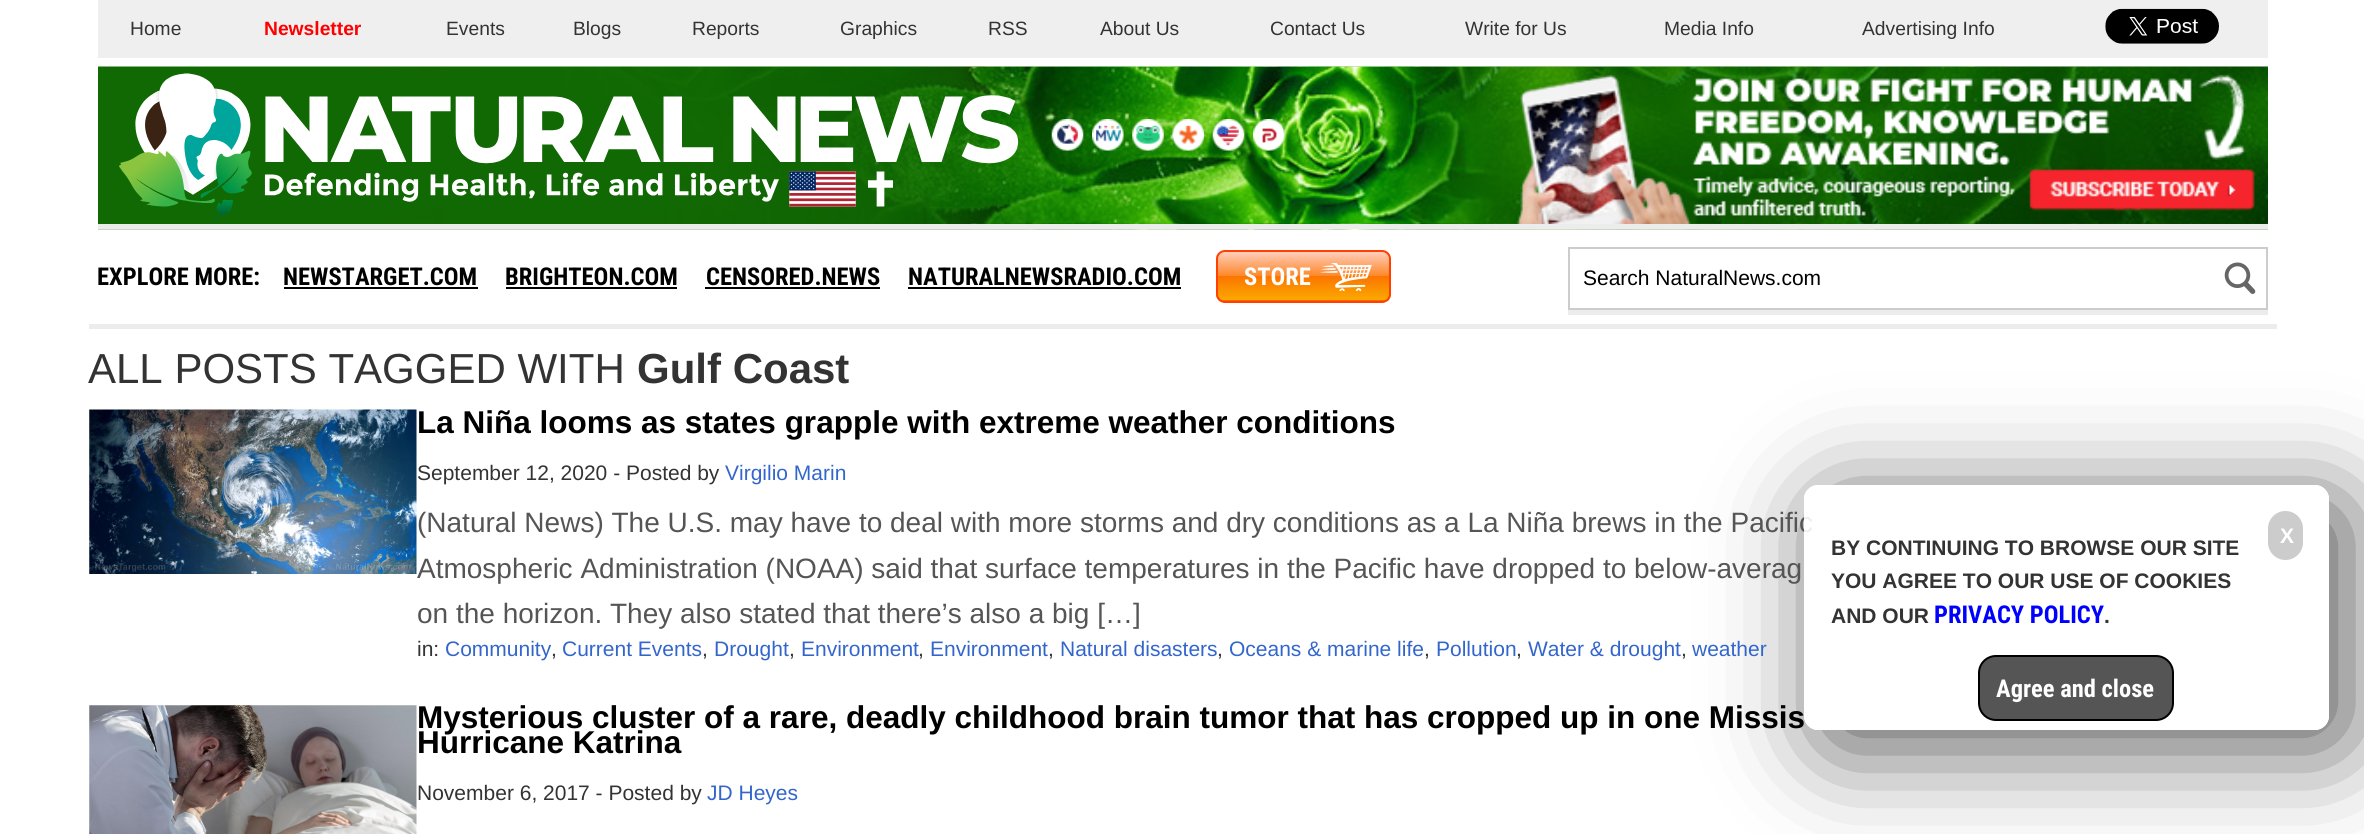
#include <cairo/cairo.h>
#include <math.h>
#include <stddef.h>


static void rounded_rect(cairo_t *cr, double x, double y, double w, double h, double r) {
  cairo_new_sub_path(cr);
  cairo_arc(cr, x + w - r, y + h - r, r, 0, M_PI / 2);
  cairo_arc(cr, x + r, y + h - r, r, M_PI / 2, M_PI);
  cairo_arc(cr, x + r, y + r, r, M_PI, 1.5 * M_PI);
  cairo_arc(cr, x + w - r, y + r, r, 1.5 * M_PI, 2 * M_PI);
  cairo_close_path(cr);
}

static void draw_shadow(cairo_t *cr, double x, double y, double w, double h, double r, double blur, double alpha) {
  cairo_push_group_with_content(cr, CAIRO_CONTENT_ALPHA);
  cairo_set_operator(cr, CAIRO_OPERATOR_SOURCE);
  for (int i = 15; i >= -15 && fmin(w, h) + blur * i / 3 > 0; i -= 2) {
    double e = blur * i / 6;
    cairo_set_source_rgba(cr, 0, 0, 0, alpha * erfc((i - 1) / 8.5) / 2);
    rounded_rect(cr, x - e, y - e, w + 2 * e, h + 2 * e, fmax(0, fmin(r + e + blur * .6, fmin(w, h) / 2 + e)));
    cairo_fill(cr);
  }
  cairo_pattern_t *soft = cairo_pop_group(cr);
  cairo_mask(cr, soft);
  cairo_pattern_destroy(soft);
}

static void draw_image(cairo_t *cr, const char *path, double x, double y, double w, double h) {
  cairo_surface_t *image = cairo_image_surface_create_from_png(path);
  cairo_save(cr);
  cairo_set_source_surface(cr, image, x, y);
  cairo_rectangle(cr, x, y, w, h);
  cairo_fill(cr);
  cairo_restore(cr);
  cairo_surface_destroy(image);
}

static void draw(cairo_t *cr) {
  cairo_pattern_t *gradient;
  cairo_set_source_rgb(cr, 1, 1, 1);
  cairo_paint(cr);
  cairo_set_source_rgb(cr, 239 / 255.0, 239 / 255.0, 239 / 255.0);
  cairo_rectangle(cr, 98, 0, 2170, 58);
  cairo_fill(cr);
  draw_image(cr, "images/1.png", 2105, 8, 114, 36);
  draw_image(cr, "images/2.png", 98, 66, 2170, 164);
  cairo_set_source_rgb(cr, 236 / 255.0, 236 / 255.0, 236 / 255.0);
  cairo_rectangle(cr, 98, 224, 2170, 5);
  cairo_fill(cr);
  draw_image(cr, "images/3.png", 119, 73, 900, 147);
  draw_image(cr, "images/4.png", 1051, 119, 33, 32);
  draw_image(cr, "images/5.png", 1092, 119, 32, 32);
  draw_image(cr, "images/6.png", 1132, 119, 32, 32);
  draw_image(cr, "images/7.png", 1172, 119, 32, 32);
  draw_image(cr, "images/8.png", 1212, 119, 33, 32);
  draw_image(cr, "images/9.png", 1253, 119, 32, 32);
  draw_image(cr, "images/10.png", 1517, 74, 738, 150);
  cairo_rectangle(cr, 89, 324, 2188, 5);
  cairo_fill(cr);
  cairo_set_source_rgb(cr, 0, 0, 0);
  cairo_rectangle(cr, 284, 287, 194, 2);
  cairo_fill(cr);
  cairo_rectangle(cr, 506, 287, 171, 2);
  cairo_fill(cr);
  cairo_rectangle(cr, 705, 287, 175, 2);
  cairo_fill(cr);
  cairo_rectangle(cr, 908, 287, 273, 2);
  cairo_fill(cr);
  cairo_save(cr);
  rounded_rect(cr, 1216, 250, 175, 53, 9);
  cairo_clip(cr);
  gradient = cairo_pattern_create_linear(1304, 252, 1304, 301);
  cairo_pattern_add_color_stop_rgba(gradient, 0, 1, 205 / 255.0, 188 / 255.0, 1);
  cairo_pattern_add_color_stop_rgba(gradient, 0.49, 254 / 255.0, 136 / 255.0, 40 / 255.0, 1);
  cairo_pattern_add_color_stop_rgba(gradient, 0.5, 252 / 255.0, 117 / 255.0, 0, 1);
  cairo_pattern_add_color_stop_rgba(gradient, 0.97, 251 / 255.0, 168 / 255.0, 0, 1);
  cairo_pattern_add_color_stop_rgba(gradient, 1, 1, 64 / 255.0, 1 / 255.0, 1);
  cairo_set_source(cr, gradient);
  cairo_pattern_destroy(gradient);
  cairo_rectangle(cr, 1216, 252, 175, 49);
  cairo_fill(cr);
  cairo_restore(cr);
  rounded_rect(cr, 1217, 251, 173, 51, 8);
  cairo_set_source_rgb(cr, 1, 64 / 255.0, 1 / 255.0);
  cairo_stroke(cr);
  draw_image(cr, "images/11.png", 1320, 263, 52, 28);
  cairo_set_source_rgb(cr, 236 / 255.0, 236 / 255.0, 236 / 255.0);
  cairo_rectangle(cr, 1568, 310, 700, 5);
  cairo_fill(cr);
  cairo_rectangle(cr, 1569, 248, 698, 61);
  cairo_set_source_rgb(cr, 204 / 255.0, 204 / 255.0, 204 / 255.0);
  cairo_stroke(cr);
  draw_image(cr, "images/12.png", 2224, 262, 32, 32);
  draw_image(cr, "images/13.png", 89, 409, 328, 165);
  draw_image(cr, "images/14.png", 89, 705, 328, 129);
  cairo_save(cr);
  cairo_set_fill_rule(cr, CAIRO_FILL_RULE_EVEN_ODD);
  cairo_new_path(cr);
  cairo_move_to(cr, 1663, 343);
  cairo_line_to(cr, 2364, 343);
  cairo_line_to(cr, 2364, 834);
  cairo_line_to(cr, 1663, 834);
  cairo_close_path(cr);
  cairo_move_to(cr, 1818, 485);
  cairo_line_to(cr, 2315, 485);
  cairo_curve_to(cr, 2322.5, 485, 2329, 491.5, 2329, 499);
  cairo_line_to(cr, 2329, 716);
  cairo_curve_to(cr, 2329, 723.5, 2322.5, 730, 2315, 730);
  cairo_line_to(cr, 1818, 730);
  cairo_curve_to(cr, 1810.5, 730, 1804, 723.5, 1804, 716);
  cairo_line_to(cr, 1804, 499);
  cairo_curve_to(cr, 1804, 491.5, 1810.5, 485, 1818, 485);
  cairo_close_path(cr);
  cairo_clip(cr);
  cairo_set_source_rgb(cr, 85 / 255.0, 85 / 255.0, 85 / 255.0);
  draw_shadow(cr, 1822, 502, 525, 245, 14, 52.5, 1);
  cairo_restore(cr);
  cairo_select_font_face(cr, "Liberation Sans", CAIRO_FONT_SLANT_NORMAL, CAIRO_FONT_WEIGHT_NORMAL);
  cairo_set_font_size(cr, 19.25);
  cairo_set_source_rgb(cr, 51 / 255.0, 51 / 255.0, 51 / 255.0);
  cairo_move_to(cr, 130, 35);
  cairo_show_text(cr, "Home");
  cairo_select_font_face(cr, "Liberation Sans", CAIRO_FONT_SLANT_NORMAL, CAIRO_FONT_WEIGHT_BOLD);
  cairo_set_source_rgb(cr, 1, 0, 0);
  cairo_move_to(cr, 264, 35);
  cairo_show_text(cr, "Newsletter");
  cairo_select_font_face(cr, "Liberation Sans", CAIRO_FONT_SLANT_NORMAL, CAIRO_FONT_WEIGHT_NORMAL);
  cairo_set_source_rgb(cr, 51 / 255.0, 51 / 255.0, 51 / 255.0);
  cairo_move_to(cr, 446, 35);
  cairo_show_text(cr, "Events");
  cairo_move_to(cr, 573, 35);
  cairo_show_text(cr, "Blogs");
  cairo_move_to(cr, 692, 35);
  cairo_show_text(cr, "Reports");
  cairo_move_to(cr, 840, 35);
  cairo_show_text(cr, "Graphics");
  cairo_move_to(cr, 988, 35);
  cairo_show_text(cr, "RSS");
  cairo_move_to(cr, 1100, 35);
  cairo_show_text(cr, "About Us");
  cairo_move_to(cr, 1270, 35);
  cairo_show_text(cr, "Contact Us");
  cairo_move_to(cr, 1465, 35);
  cairo_show_text(cr, "Write for Us");
  cairo_move_to(cr, 1664, 35);
  cairo_show_text(cr, "Media Info");
  cairo_move_to(cr, 1862, 35);
  cairo_show_text(cr, "Advertising Info");
  cairo_select_font_face(cr, "Roboto Condensed", CAIRO_FONT_SLANT_NORMAL, CAIRO_FONT_WEIGHT_BOLD);
  cairo_set_font_size(cr, 24.5);
  cairo_set_source_rgb(cr, 0, 0, 0);
  cairo_move_to(cr, 97, 285);
  cairo_show_text(cr, "EXPLORE MORE:");
  cairo_move_to(cr, 283, 285);
  cairo_show_text(cr, "NEWSTARGET.COM");
  cairo_move_to(cr, 505, 285);
  cairo_show_text(cr, "BRIGHTEON.COM");
  cairo_move_to(cr, 706, 285);
  cairo_show_text(cr, "CENSORED.NEWS");
  cairo_move_to(cr, 908, 285);
  cairo_show_text(cr, "NATURALNEWSRADIO.COM");
  cairo_set_source_rgb(cr, 1, 1, 1);
  cairo_move_to(cr, 1244, 285);
  cairo_show_text(cr, "STORE");
  cairo_select_font_face(cr, "Liberation Sans", CAIRO_FONT_SLANT_NORMAL, CAIRO_FONT_WEIGHT_NORMAL);
  cairo_set_font_size(cr, 21);
  cairo_set_source_rgb(cr, 0, 0, 0);
  cairo_move_to(cr, 1583, 285);
  cairo_show_text(cr, "Search NaturalNews.com");
  cairo_set_font_size(cr, 42);
  cairo_set_source_rgb(cr, 51 / 255.0, 51 / 255.0, 51 / 255.0);
  cairo_move_to(cr, 88, 383);
  cairo_show_text(cr, "ALL POSTS TAGGED WITH");
  cairo_select_font_face(cr, "Liberation Sans", CAIRO_FONT_SLANT_NORMAL, CAIRO_FONT_WEIGHT_BOLD);
  cairo_move_to(cr, 637, 383);
  cairo_show_text(cr, "Gulf Coast");
  cairo_set_font_size(cr, 31.5);
  cairo_set_source_rgb(cr, 0, 0, 0);
  cairo_move_to(cr, 417, 433);
  cairo_show_text(cr, "La Niña looms as states grapple with extreme weather conditions");
  cairo_select_font_face(cr, "Liberation Sans", CAIRO_FONT_SLANT_NORMAL, CAIRO_FONT_WEIGHT_NORMAL);
  cairo_set_font_size(cr, 21);
  cairo_set_source_rgb(cr, 51 / 255.0, 51 / 255.0, 51 / 255.0);
  cairo_move_to(cr, 417, 480);
  cairo_show_text(cr, "September 12, 2020 - Posted by");
  cairo_set_source_rgb(cr, 51 / 255.0, 102 / 255.0, 204 / 255.0);
  cairo_move_to(cr, 725, 480);
  cairo_show_text(cr, "Virgilio Marin");
  cairo_set_font_size(cr, 28);
  cairo_set_source_rgb(cr, 85 / 255.0, 85 / 255.0, 85 / 255.0);
  cairo_move_to(cr, 417, 532);
  cairo_show_text(cr, "(Natural News) The U.S. may have to deal with more storms and dry conditions as a La Niña brews in the Pacific");
  cairo_move_to(cr, 417, 578);
  cairo_show_text(cr, "Atmospheric Administration (NOAA) said that surface temperatures in the Pacific have dropped to below-averag");
  cairo_move_to(cr, 417, 623);
  cairo_show_text(cr, "on the horizon. They also stated that there’s also a big […]");
  cairo_set_font_size(cr, 21);
  cairo_set_source_rgb(cr, 51 / 255.0, 51 / 255.0, 51 / 255.0);
  cairo_move_to(cr, 417, 656);
  cairo_show_text(cr, "in:");
  cairo_set_source_rgb(cr, 51 / 255.0, 102 / 255.0, 204 / 255.0);
  cairo_move_to(cr, 445, 656);
  cairo_show_text(cr, "Community");
  cairo_set_source_rgb(cr, 51 / 255.0, 51 / 255.0, 51 / 255.0);
  cairo_move_to(cr, 551, 656);
  cairo_show_text(cr, ",");
  cairo_set_source_rgb(cr, 51 / 255.0, 102 / 255.0, 204 / 255.0);
  cairo_move_to(cr, 562, 656);
  cairo_show_text(cr, "Current Events");
  cairo_set_source_rgb(cr, 51 / 255.0, 51 / 255.0, 51 / 255.0);
  cairo_move_to(cr, 702, 656);
  cairo_show_text(cr, ",");
  cairo_set_source_rgb(cr, 51 / 255.0, 102 / 255.0, 204 / 255.0);
  cairo_move_to(cr, 714, 656);
  cairo_show_text(cr, "Drought");
  cairo_set_source_rgb(cr, 51 / 255.0, 51 / 255.0, 51 / 255.0);
  cairo_move_to(cr, 789, 656);
  cairo_show_text(cr, ",");
  cairo_set_source_rgb(cr, 51 / 255.0, 102 / 255.0, 204 / 255.0);
  cairo_move_to(cr, 801, 656);
  cairo_show_text(cr, "Environment");
  cairo_set_source_rgb(cr, 51 / 255.0, 51 / 255.0, 51 / 255.0);
  cairo_move_to(cr, 918, 656);
  cairo_show_text(cr, ",");
  cairo_set_source_rgb(cr, 51 / 255.0, 102 / 255.0, 204 / 255.0);
  cairo_move_to(cr, 930, 656);
  cairo_show_text(cr, "Environment");
  cairo_set_source_rgb(cr, 51 / 255.0, 51 / 255.0, 51 / 255.0);
  cairo_move_to(cr, 1048, 656);
  cairo_show_text(cr, ",");
  cairo_set_source_rgb(cr, 51 / 255.0, 102 / 255.0, 204 / 255.0);
  cairo_move_to(cr, 1060, 656);
  cairo_show_text(cr, "Natural disasters");
  cairo_set_source_rgb(cr, 51 / 255.0, 51 / 255.0, 51 / 255.0);
  cairo_move_to(cr, 1217, 656);
  cairo_show_text(cr, ",");
  cairo_set_source_rgb(cr, 51 / 255.0, 102 / 255.0, 204 / 255.0);
  cairo_move_to(cr, 1229, 656);
  cairo_show_text(cr, "Oceans & marine life");
  cairo_set_source_rgb(cr, 51 / 255.0, 51 / 255.0, 51 / 255.0);
  cairo_move_to(cr, 1424, 656);
  cairo_show_text(cr, ",");
  cairo_set_source_rgb(cr, 51 / 255.0, 102 / 255.0, 204 / 255.0);
  cairo_move_to(cr, 1436, 656);
  cairo_show_text(cr, "Pollution");
  cairo_set_source_rgb(cr, 51 / 255.0, 51 / 255.0, 51 / 255.0);
  cairo_move_to(cr, 1516, 656);
  cairo_show_text(cr, ",");
  cairo_set_source_rgb(cr, 51 / 255.0, 102 / 255.0, 204 / 255.0);
  cairo_move_to(cr, 1528, 656);
  cairo_show_text(cr, "Water & drought");
  cairo_set_source_rgb(cr, 51 / 255.0, 51 / 255.0, 51 / 255.0);
  cairo_move_to(cr, 1681, 656);
  cairo_show_text(cr, ",");
  cairo_set_source_rgb(cr, 51 / 255.0, 102 / 255.0, 204 / 255.0);
  cairo_move_to(cr, 1692, 656);
  cairo_show_text(cr, "weather");
  cairo_select_font_face(cr, "Liberation Sans", CAIRO_FONT_SLANT_NORMAL, CAIRO_FONT_WEIGHT_BOLD);
  cairo_set_font_size(cr, 31.5);
  cairo_set_source_rgb(cr, 0, 0, 0);
  cairo_move_to(cr, 417, 728);
  cairo_show_text(cr, "Mysterious cluster of a rare, deadly childhood brain tumor that has cropped up in one Missis");
  cairo_move_to(cr, 417, 753);
  cairo_show_text(cr, "Hurricane Katrina");
  cairo_select_font_face(cr, "Liberation Sans", CAIRO_FONT_SLANT_NORMAL, CAIRO_FONT_WEIGHT_NORMAL);
  cairo_set_font_size(cr, 21);
  cairo_set_source_rgb(cr, 51 / 255.0, 51 / 255.0, 51 / 255.0);
  cairo_move_to(cr, 417, 800);
  cairo_show_text(cr, "November 6, 2017 - Posted by");
  cairo_set_source_rgb(cr, 51 / 255.0, 102 / 255.0, 204 / 255.0);
  cairo_move_to(cr, 707, 800);
  cairo_show_text(cr, "JD Heyes");
  cairo_set_source_rgba(cr, 1, 1, 1, 0.9);
  rounded_rect(cr, 1804, 485, 525, 245, 14);
  cairo_fill(cr);
  cairo_set_source_rgb(cr, 204 / 255.0, 204 / 255.0, 204 / 255.0);
  rounded_rect(cr, 2268, 511, 35, 49, 17.5);
  cairo_fill(cr);
  cairo_select_font_face(cr, "Liberation Sans", CAIRO_FONT_SLANT_NORMAL, CAIRO_FONT_WEIGHT_BOLD);
  cairo_set_source_rgb(cr, 1, 1, 1);
  cairo_move_to(cr, 2280, 543);
  cairo_show_text(cr, "X");
  cairo_set_source_rgb(cr, 51 / 255.0, 51 / 255.0, 51 / 255.0);
  cairo_move_to(cr, 1831, 555);
  cairo_show_text(cr, "BY CONTINUING TO BROWSE OUR SITE");
  cairo_move_to(cr, 1831, 588);
  cairo_show_text(cr, "YOU AGREE TO OUR USE OF COOKIES");
  cairo_move_to(cr, 1831, 623);
  cairo_show_text(cr, "AND OUR");
  cairo_select_font_face(cr, "Roboto Condensed", CAIRO_FONT_SLANT_NORMAL, CAIRO_FONT_WEIGHT_BOLD);
  cairo_set_font_size(cr, 24.5);
  cairo_set_source_rgb(cr, 0, 0, 1);
  cairo_move_to(cr, 1934, 623);
  cairo_show_text(cr, "PRIVACY POLICY");
  cairo_select_font_face(cr, "Liberation Sans", CAIRO_FONT_SLANT_NORMAL, CAIRO_FONT_WEIGHT_BOLD);
  cairo_set_font_size(cr, 21);
  cairo_set_source_rgb(cr, 51 / 255.0, 51 / 255.0, 51 / 255.0);
  cairo_move_to(cr, 2104, 623);
  cairo_show_text(cr, ".");
  cairo_set_source_rgb(cr, 85 / 255.0, 85 / 255.0, 85 / 255.0);
  rounded_rect(cr, 1979, 656, 194, 64, 17);
  cairo_fill_preserve(cr);
  cairo_set_source_rgb(cr, 0, 0, 0);
  cairo_stroke(cr);
  cairo_select_font_face(cr, "Roboto Condensed", CAIRO_FONT_SLANT_NORMAL, CAIRO_FONT_WEIGHT_BOLD);
  cairo_set_font_size(cr, 24.5);
  cairo_set_source_rgb(cr, 1, 1, 1);
  cairo_move_to(cr, 1996, 697);
  cairo_show_text(cr, "Agree and close");
}

int main(void) {
  cairo_surface_t *surface = cairo_image_surface_create(CAIRO_FORMAT_RGB24, 2364, 834);
  cairo_t *cr = cairo_create(surface);
  cairo_font_options_t *options = cairo_font_options_create();
  cairo_font_options_set_hint_metrics(options, CAIRO_HINT_METRICS_OFF);
  cairo_font_options_set_hint_style(options, CAIRO_HINT_STYLE_NONE);
  cairo_set_font_options(cr, options);
  cairo_set_miter_limit(cr, 4);
  draw(cr);
  cairo_surface_write_to_png(surface, "out.png");
  cairo_font_options_destroy(options);
  cairo_destroy(cr);
  cairo_surface_destroy(surface);
  return 0;
}
